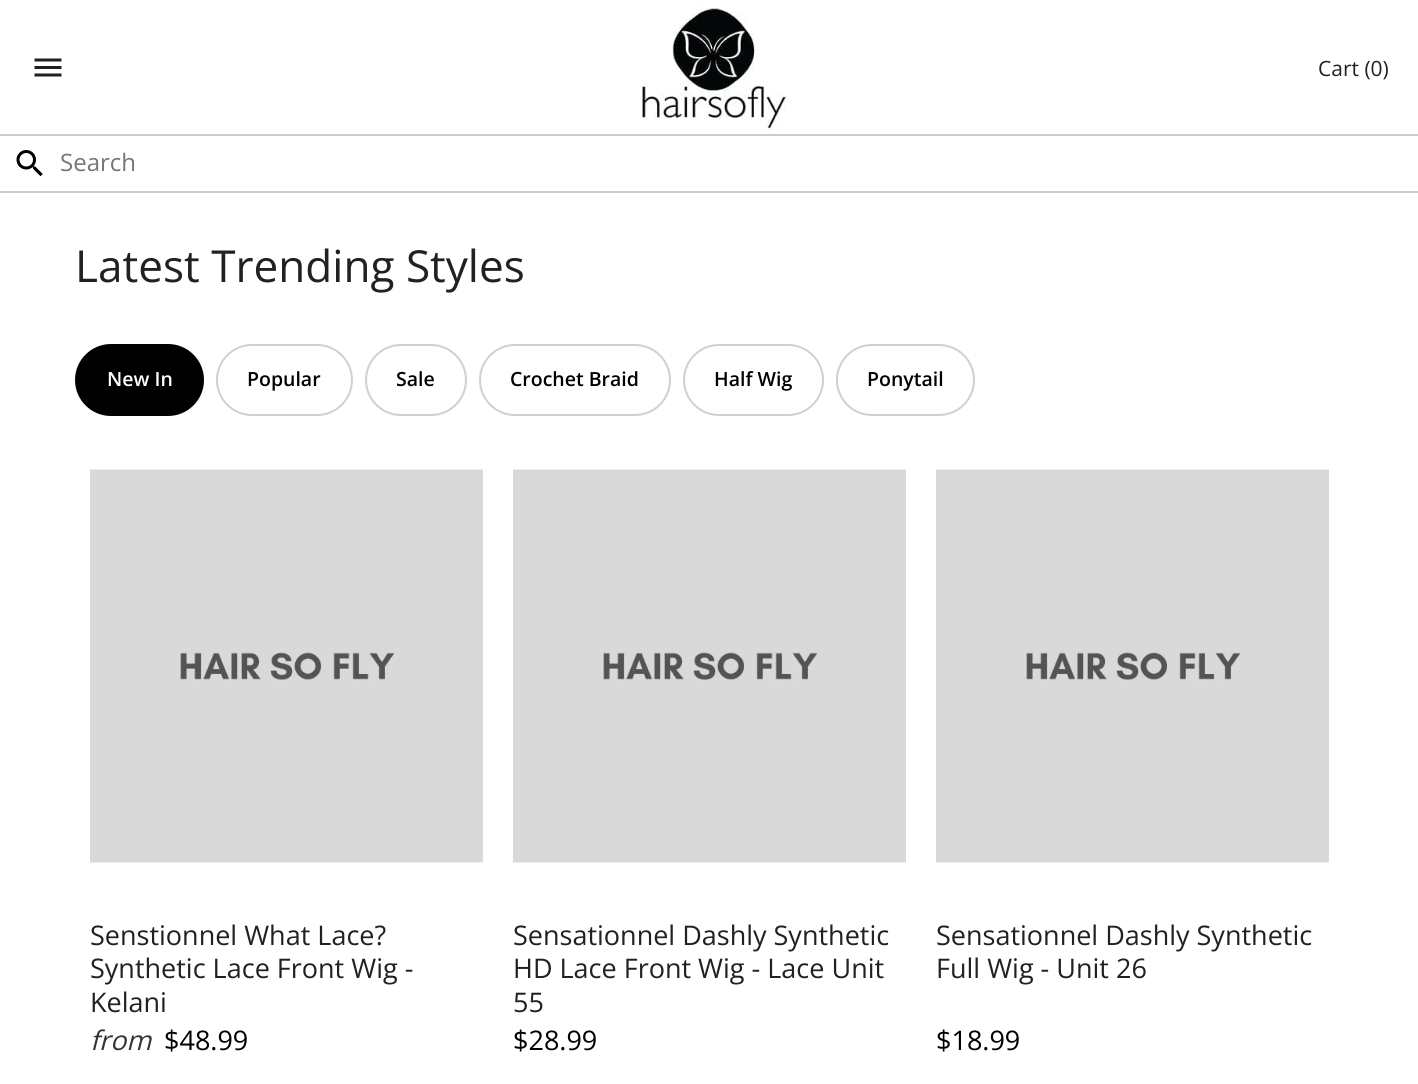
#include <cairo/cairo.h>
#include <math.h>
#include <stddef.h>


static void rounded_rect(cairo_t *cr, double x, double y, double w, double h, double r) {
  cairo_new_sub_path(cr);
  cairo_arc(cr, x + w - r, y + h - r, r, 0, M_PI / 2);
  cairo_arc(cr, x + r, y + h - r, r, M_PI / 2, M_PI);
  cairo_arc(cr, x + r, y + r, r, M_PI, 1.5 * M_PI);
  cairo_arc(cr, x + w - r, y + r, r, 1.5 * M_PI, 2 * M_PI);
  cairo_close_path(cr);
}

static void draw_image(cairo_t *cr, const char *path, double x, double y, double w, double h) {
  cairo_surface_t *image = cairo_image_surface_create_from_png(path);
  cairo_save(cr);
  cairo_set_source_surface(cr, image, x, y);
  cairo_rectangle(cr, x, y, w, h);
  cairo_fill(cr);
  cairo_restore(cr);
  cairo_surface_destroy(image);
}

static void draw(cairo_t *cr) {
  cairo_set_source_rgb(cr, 1, 1, 1);
  cairo_paint(cr);
  draw_image(cr, "images/1.png", 34, 58, 28, 19);
  draw_image(cr, "images/2.png", 641, 6, 148, 125);
  draw_image(cr, "images/3.png", 16, 150, 27, 27);
  cairo_set_source_rgb(cr, 204 / 255.0, 204 / 255.0, 204 / 255.0);
  cairo_rectangle(cr, 0, 134, 1418, 2);
  cairo_fill(cr);
  cairo_rectangle(cr, 0, 191, 1418, 2);
  cairo_fill(cr);
  cairo_set_source_rgb(cr, 0, 0, 0);
  rounded_rect(cr, 76, 345, 127, 70, 35);
  cairo_fill_preserve(cr);
  cairo_stroke(cr);
  rounded_rect(cr, 217, 345, 135, 70, 35);
  cairo_set_source_rgb(cr, 208 / 255.0, 208 / 255.0, 208 / 255.0);
  cairo_stroke(cr);
  rounded_rect(cr, 366, 345, 100, 70, 35);
  cairo_stroke(cr);
  rounded_rect(cr, 480, 345, 190, 70, 35);
  cairo_stroke(cr);
  rounded_rect(cr, 684, 345, 139, 70, 35);
  cairo_stroke(cr);
  rounded_rect(cr, 837, 345, 137, 70, 35);
  cairo_stroke(cr);
  draw_image(cr, "images/4.png", 90, 469, 393, 394);
  draw_image(cr, "images/4.png", 513, 469, 393, 394);
  draw_image(cr, "images/4.png", 936, 469, 393, 394);
  cairo_select_font_face(cr, "Open Sans", CAIRO_FONT_SLANT_NORMAL, CAIRO_FONT_WEIGHT_NORMAL);
  cairo_set_font_size(cr, 21);
  cairo_set_source_rgb(cr, 33 / 255.0, 33 / 255.0, 33 / 255.0);
  cairo_move_to(cr, 1318, 76);
  cairo_show_text(cr, "Cart (0)");
  cairo_set_font_size(cr, 24);
  cairo_set_source_rgb(cr, 117 / 255.0, 117 / 255.0, 117 / 255.0);
  cairo_move_to(cr, 60, 171);
  cairo_show_text(cr, "Search");
  cairo_set_font_size(cr, 44.1);
  cairo_set_source_rgb(cr, 33 / 255.0, 33 / 255.0, 33 / 255.0);
  cairo_move_to(cr, 75, 282);
  cairo_show_text(cr, "Latest Trending Styles");
  cairo_select_font_face(cr, "Open Sans SemiBold", CAIRO_FONT_SLANT_NORMAL, CAIRO_FONT_WEIGHT_NORMAL);
  cairo_set_font_size(cr, 19.5);
  cairo_set_source_rgb(cr, 1, 1, 1);
  cairo_move_to(cr, 107, 386);
  cairo_show_text(cr, "New In");
  cairo_set_source_rgb(cr, 0, 0, 0);
  cairo_move_to(cr, 247, 386);
  cairo_show_text(cr, "Popular");
  cairo_move_to(cr, 396, 386);
  cairo_show_text(cr, "Sale");
  cairo_move_to(cr, 510, 386);
  cairo_show_text(cr, "Crochet Braid");
  cairo_move_to(cr, 714, 386);
  cairo_show_text(cr, "Half Wig");
  cairo_move_to(cr, 867, 386);
  cairo_show_text(cr, "Ponytail");
  cairo_select_font_face(cr, "Open Sans", CAIRO_FONT_SLANT_NORMAL, CAIRO_FONT_WEIGHT_NORMAL);
  cairo_set_font_size(cr, 27);
  cairo_set_source_rgb(cr, 33 / 255.0, 33 / 255.0, 33 / 255.0);
  cairo_move_to(cr, 90, 945);
  cairo_show_text(cr, "Senstionnel What Lace?");
  cairo_move_to(cr, 90, 978);
  cairo_show_text(cr, "Synthetic Lace Front Wig -");
  cairo_move_to(cr, 90, 1012);
  cairo_show_text(cr, "Kelani");
  cairo_select_font_face(cr, "Open Sans", CAIRO_FONT_SLANT_ITALIC, CAIRO_FONT_WEIGHT_NORMAL);
  cairo_set_source_rgb(cr, 51 / 255.0, 51 / 255.0, 51 / 255.0);
  cairo_move_to(cr, 90, 1050);
  cairo_show_text(cr, "from");
  cairo_select_font_face(cr, "Open Sans", CAIRO_FONT_SLANT_NORMAL, CAIRO_FONT_WEIGHT_NORMAL);
  cairo_set_source_rgb(cr, 0, 0, 0);
  cairo_move_to(cr, 164, 1050);
  cairo_show_text(cr, "$48.99");
  cairo_set_source_rgb(cr, 33 / 255.0, 33 / 255.0, 33 / 255.0);
  cairo_move_to(cr, 513, 945);
  cairo_show_text(cr, "Sensationnel Dashly Synthetic");
  cairo_move_to(cr, 513, 978);
  cairo_show_text(cr, "HD Lace Front Wig - Lace Unit");
  cairo_move_to(cr, 513, 1012);
  cairo_show_text(cr, "55");
  cairo_set_source_rgb(cr, 0, 0, 0);
  cairo_move_to(cr, 513, 1050);
  cairo_show_text(cr, "$28.99");
  cairo_set_source_rgb(cr, 33 / 255.0, 33 / 255.0, 33 / 255.0);
  cairo_move_to(cr, 936, 945);
  cairo_show_text(cr, "Sensationnel Dashly Synthetic");
  cairo_move_to(cr, 936, 978);
  cairo_show_text(cr, "Full Wig - Unit 26");
  cairo_set_source_rgb(cr, 0, 0, 0);
  cairo_move_to(cr, 936, 1050);
  cairo_show_text(cr, "$18.99");
}

int main(void) {
  cairo_surface_t *surface = cairo_image_surface_create(CAIRO_FORMAT_RGB24, 1418, 1084);
  cairo_t *cr = cairo_create(surface);
  cairo_font_options_t *options = cairo_font_options_create();
  cairo_font_options_set_hint_metrics(options, CAIRO_HINT_METRICS_OFF);
  cairo_font_options_set_hint_style(options, CAIRO_HINT_STYLE_NONE);
  cairo_set_font_options(cr, options);
  cairo_set_miter_limit(cr, 4);
  draw(cr);
  cairo_surface_write_to_png(surface, "out.png");
  cairo_font_options_destroy(options);
  cairo_destroy(cr);
  cairo_surface_destroy(surface);
  return 0;
}
